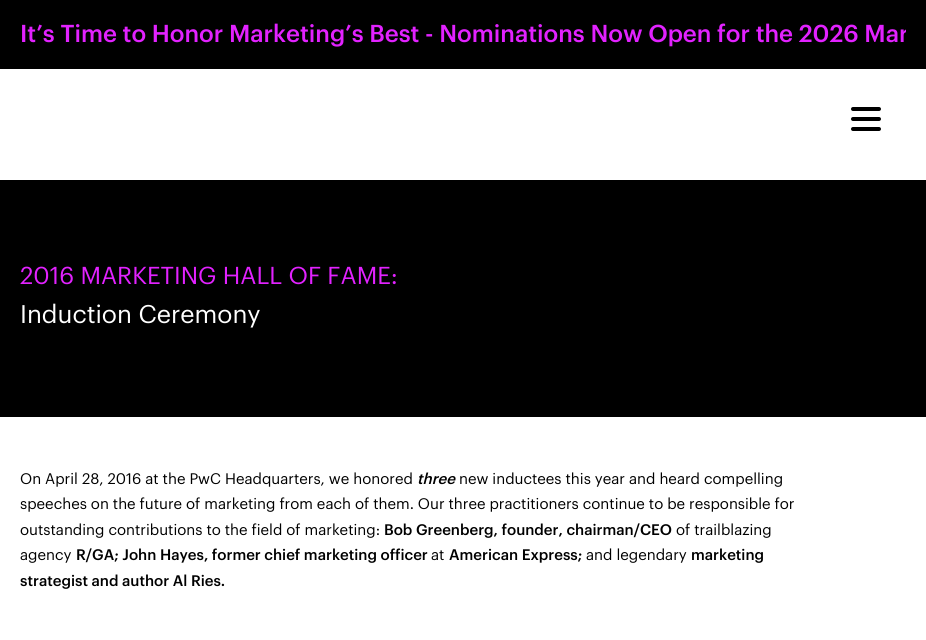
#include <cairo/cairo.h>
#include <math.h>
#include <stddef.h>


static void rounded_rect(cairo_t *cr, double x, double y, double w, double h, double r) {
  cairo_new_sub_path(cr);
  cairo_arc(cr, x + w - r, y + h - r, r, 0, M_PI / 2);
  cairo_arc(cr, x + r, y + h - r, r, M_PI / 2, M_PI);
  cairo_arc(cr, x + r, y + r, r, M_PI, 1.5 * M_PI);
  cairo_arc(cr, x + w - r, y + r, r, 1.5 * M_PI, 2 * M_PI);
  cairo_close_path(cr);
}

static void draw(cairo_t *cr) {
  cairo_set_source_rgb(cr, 1, 1, 1);
  cairo_paint(cr);
  cairo_set_source_rgb(cr, 0, 0, 0);
  cairo_rectangle(cr, 0, 0, 926, 69);
  cairo_fill(cr);
  rounded_rect(cr, 851, 107, 30, 4, 2);
  cairo_fill(cr);
  rounded_rect(cr, 851, 117, 30, 4, 2);
  cairo_fill(cr);
  rounded_rect(cr, 851, 127, 30, 4, 2);
  cairo_fill(cr);
  cairo_rectangle(cr, 0, 180, 926, 237);
  cairo_fill(cr);
  cairo_save(cr);
  cairo_rectangle(cr, 20, 8, 886, 53);
  cairo_clip(cr);
  cairo_select_font_face(cr, "Graphik Medium", CAIRO_FONT_SLANT_NORMAL, CAIRO_FONT_WEIGHT_NORMAL);
  cairo_set_font_size(cr, 24);
  cairo_set_source_rgb(cr, 226 / 255.0, 34 / 255.0, 1);
  cairo_move_to(cr, 20, 42);
  cairo_show_text(cr, "It’s Time to Honor Marketing’s Best - Nominations Now Open for the 2026 Mar");
  cairo_restore(cr);
  cairo_select_font_face(cr, "Graphik", CAIRO_FONT_SLANT_NORMAL, CAIRO_FONT_WEIGHT_NORMAL);
  cairo_set_font_size(cr, 24);
  cairo_set_source_rgb(cr, 226 / 255.0, 34 / 255.0, 1);
  cairo_move_to(cr, 20, 284);
  cairo_show_text(cr, "2016 MARKETING HALL OF FAME:");
  cairo_set_font_size(cr, 25);
  cairo_set_source_rgb(cr, 1, 1, 1);
  cairo_move_to(cr, 20, 323);
  cairo_show_text(cr, "Induction Ceremony");
  cairo_set_font_size(cr, 15);
  cairo_set_source_rgb(cr, 0, 0, 0);
  cairo_move_to(cr, 20, 484);
  cairo_show_text(cr, "On April 28, 2016 at the PwC Headquarters, we honored");
  cairo_select_font_face(cr, "Graphik Medium", CAIRO_FONT_SLANT_ITALIC, CAIRO_FONT_WEIGHT_NORMAL);
  cairo_move_to(cr, 417, 484);
  cairo_show_text(cr, "three");
  cairo_select_font_face(cr, "Graphik", CAIRO_FONT_SLANT_NORMAL, CAIRO_FONT_WEIGHT_NORMAL);
  cairo_move_to(cr, 459, 484);
  cairo_show_text(cr, "new inductees this year and heard compelling");
  cairo_move_to(cr, 20, 509);
  cairo_show_text(cr, "speeches on the future of marketing from each of them. Our three practitioners continue to be responsible for");
  cairo_move_to(cr, 20, 535);
  cairo_show_text(cr, "outstanding contributions to the field of marketing:");
  cairo_select_font_face(cr, "Graphik Medium", CAIRO_FONT_SLANT_NORMAL, CAIRO_FONT_WEIGHT_NORMAL);
  cairo_move_to(cr, 384, 535);
  cairo_show_text(cr, "Bob Greenberg, founder, chairman/CEO");
  cairo_select_font_face(cr, "Graphik", CAIRO_FONT_SLANT_NORMAL, CAIRO_FONT_WEIGHT_NORMAL);
  cairo_move_to(cr, 676, 535);
  cairo_show_text(cr, "of trailblazing");
  cairo_move_to(cr, 20, 560);
  cairo_show_text(cr, "agency");
  cairo_select_font_face(cr, "Graphik Medium", CAIRO_FONT_SLANT_NORMAL, CAIRO_FONT_WEIGHT_NORMAL);
  cairo_move_to(cr, 76, 560);
  cairo_show_text(cr, "R/GA; John Hayes, former chief marketing officer");
  cairo_select_font_face(cr, "Graphik", CAIRO_FONT_SLANT_NORMAL, CAIRO_FONT_WEIGHT_NORMAL);
  cairo_move_to(cr, 431, 560);
  cairo_show_text(cr, "at");
  cairo_select_font_face(cr, "Graphik Medium", CAIRO_FONT_SLANT_NORMAL, CAIRO_FONT_WEIGHT_NORMAL);
  cairo_move_to(cr, 449, 560);
  cairo_show_text(cr, "American Express;");
  cairo_select_font_face(cr, "Graphik", CAIRO_FONT_SLANT_NORMAL, CAIRO_FONT_WEIGHT_NORMAL);
  cairo_move_to(cr, 586, 560);
  cairo_show_text(cr, "and legendary");
  cairo_select_font_face(cr, "Graphik Medium", CAIRO_FONT_SLANT_NORMAL, CAIRO_FONT_WEIGHT_NORMAL);
  cairo_move_to(cr, 691, 560);
  cairo_show_text(cr, "marketing");
  cairo_move_to(cr, 20, 586);
  cairo_show_text(cr, "strategist and author Al Ries.");
}

int main(void) {
  cairo_surface_t *surface = cairo_image_surface_create(CAIRO_FORMAT_RGB24, 926, 640);
  cairo_t *cr = cairo_create(surface);
  cairo_font_options_t *options = cairo_font_options_create();
  cairo_font_options_set_hint_metrics(options, CAIRO_HINT_METRICS_OFF);
  cairo_font_options_set_hint_style(options, CAIRO_HINT_STYLE_NONE);
  cairo_set_font_options(cr, options);
  cairo_set_miter_limit(cr, 4);
  draw(cr);
  cairo_surface_write_to_png(surface, "out.png");
  cairo_font_options_destroy(options);
  cairo_destroy(cr);
  cairo_surface_destroy(surface);
  return 0;
}
